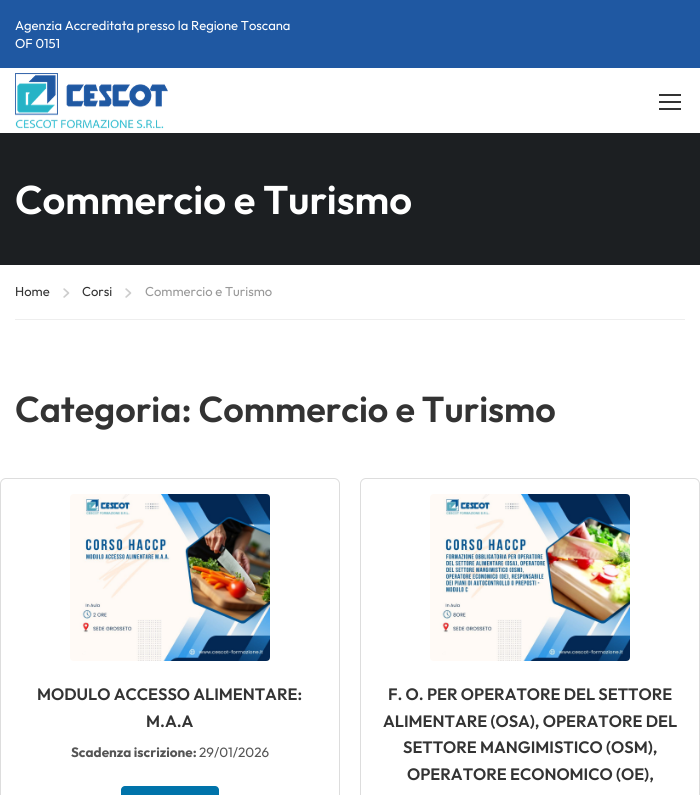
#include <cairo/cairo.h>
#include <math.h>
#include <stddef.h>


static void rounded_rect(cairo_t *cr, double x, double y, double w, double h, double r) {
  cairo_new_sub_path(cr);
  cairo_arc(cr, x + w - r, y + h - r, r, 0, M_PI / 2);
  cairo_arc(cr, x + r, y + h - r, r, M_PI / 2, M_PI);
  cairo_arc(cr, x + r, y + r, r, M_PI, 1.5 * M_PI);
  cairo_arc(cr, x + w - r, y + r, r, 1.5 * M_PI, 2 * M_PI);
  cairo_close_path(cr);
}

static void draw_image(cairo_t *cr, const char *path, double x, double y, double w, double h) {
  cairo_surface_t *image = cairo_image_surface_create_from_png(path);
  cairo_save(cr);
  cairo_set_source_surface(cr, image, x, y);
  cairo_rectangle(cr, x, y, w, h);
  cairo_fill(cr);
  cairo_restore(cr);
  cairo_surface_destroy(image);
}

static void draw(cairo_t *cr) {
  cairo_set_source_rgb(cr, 1, 1, 1);
  cairo_paint(cr);
  cairo_set_source_rgb(cr, 31 / 255.0, 88 / 255.0, 162 / 255.0);
  cairo_rectangle(cr, 0, 0, 700, 68);
  cairo_fill(cr);
  draw_image(cr, "images/1.png", 15, 73, 153, 56);
  cairo_set_source_rgb(cr, 51 / 255.0, 51 / 255.0, 51 / 255.0);
  cairo_rectangle(cr, 659, 94, 22, 2);
  cairo_fill(cr);
  cairo_rectangle(cr, 659, 101, 22, 2);
  cairo_fill(cr);
  cairo_rectangle(cr, 659, 108, 22, 2);
  cairo_fill(cr);
  cairo_set_source_rgb(cr, 28 / 255.0, 31 / 255.0, 34 / 255.0);
  cairo_rectangle(cr, 0, 133, 700, 132);
  cairo_fill(cr);
  cairo_set_source_rgb(cr, 238 / 255.0, 238 / 255.0, 238 / 255.0);
  cairo_rectangle(cr, 15, 319, 670, 1);
  cairo_fill(cr);
  draw_image(cr, "images/2.png", 63, 288, 7, 10);
  draw_image(cr, "images/2.png", 125, 288, 7, 10);
  rounded_rect(cr, 0.5, 478.5, 339, 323, 5.5);
  cairo_set_source_rgb(cr, 221 / 255.0, 221 / 255.0, 221 / 255.0);
  cairo_set_line_width(cr, 1);
  cairo_stroke(cr);
  draw_image(cr, "images/3.png", 70, 494, 200, 167);
  cairo_set_source_rgb(cr, 0, 115 / 255.0, 170 / 255.0);
  rounded_rect(cr, 121, 786, 98, 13, 4);
  cairo_fill(cr);
  rounded_rect(cr, 360.5, 478.5, 339, 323, 5.5);
  cairo_set_source_rgb(cr, 221 / 255.0, 221 / 255.0, 221 / 255.0);
  cairo_stroke(cr);
  draw_image(cr, "images/4.png", 430, 494, 200, 167);
  cairo_select_font_face(cr, "Outfit", CAIRO_FONT_SLANT_NORMAL, CAIRO_FONT_WEIGHT_NORMAL);
  cairo_set_font_size(cr, 13);
  cairo_set_source_rgb(cr, 1, 1, 1);
  cairo_move_to(cr, 15, 30);
  cairo_show_text(cr, "Agenzia Accreditata presso la Regione Toscana");
  cairo_move_to(cr, 15, 48);
  cairo_show_text(cr, "OF 0151");
  cairo_select_font_face(cr, "Outfit SemiBold", CAIRO_FONT_SLANT_NORMAL, CAIRO_FONT_WEIGHT_NORMAL);
  cairo_set_font_size(cr, 40);
  cairo_move_to(cr, 15, 214);
  cairo_show_text(cr, "Commercio e Turismo");
  cairo_select_font_face(cr, "Outfit", CAIRO_FONT_SLANT_NORMAL, CAIRO_FONT_WEIGHT_NORMAL);
  cairo_set_font_size(cr, 13);
  cairo_set_source_rgb(cr, 51 / 255.0, 51 / 255.0, 51 / 255.0);
  cairo_move_to(cr, 15, 296);
  cairo_show_text(cr, "Home");
  cairo_move_to(cr, 82, 296);
  cairo_show_text(cr, "Corsi");
  cairo_set_source_rgb(cr, 153 / 255.0, 153 / 255.0, 153 / 255.0);
  cairo_move_to(cr, 145, 296);
  cairo_show_text(cr, "Commercio e Turismo");
  cairo_select_font_face(cr, "Outfit SemiBold", CAIRO_FONT_SLANT_NORMAL, CAIRO_FONT_WEIGHT_NORMAL);
  cairo_set_font_size(cr, 36);
  cairo_set_source_rgb(cr, 51 / 255.0, 51 / 255.0, 51 / 255.0);
  cairo_move_to(cr, 15, 422);
  cairo_show_text(cr, "Categoria: Commercio e Turismo");
  cairo_set_font_size(cr, 16.5);
  cairo_move_to(cr, 37, 700);
  cairo_show_text(cr, "MODULO ACCESSO ALIMENTARE:");
  cairo_move_to(cr, 146, 727);
  cairo_show_text(cr, "M.A.A");
  cairo_select_font_face(cr, "Outfit", CAIRO_FONT_SLANT_NORMAL, CAIRO_FONT_WEIGHT_BOLD);
  cairo_set_font_size(cr, 13.5);
  cairo_set_source_rgb(cr, 85 / 255.0, 85 / 255.0, 85 / 255.0);
  cairo_move_to(cr, 71, 757);
  cairo_show_text(cr, "Scadenza iscrizione:");
  cairo_select_font_face(cr, "Outfit", CAIRO_FONT_SLANT_NORMAL, CAIRO_FONT_WEIGHT_NORMAL);
  cairo_move_to(cr, 199, 757);
  cairo_show_text(cr, "29/01/2026");
  cairo_select_font_face(cr, "Outfit SemiBold", CAIRO_FONT_SLANT_NORMAL, CAIRO_FONT_WEIGHT_NORMAL);
  cairo_set_font_size(cr, 16.5);
  cairo_set_source_rgb(cr, 51 / 255.0, 51 / 255.0, 51 / 255.0);
  cairo_move_to(cr, 388, 700);
  cairo_show_text(cr, "F. O. PER OPERATORE DEL SETTORE");
  cairo_move_to(cr, 383, 727);
  cairo_show_text(cr, "ALIMENTARE (OSA), OPERATORE DEL");
  cairo_move_to(cr, 403, 753);
  cairo_show_text(cr, "SETTORE MANGIMISTICO (OSM),");
  cairo_move_to(cr, 407, 780);
  cairo_show_text(cr, "OPERATORE ECONOMICO (OE),");
}

int main(void) {
  cairo_surface_t *surface = cairo_image_surface_create(CAIRO_FORMAT_RGB24, 700, 795);
  cairo_t *cr = cairo_create(surface);
  cairo_font_options_t *options = cairo_font_options_create();
  cairo_font_options_set_hint_metrics(options, CAIRO_HINT_METRICS_OFF);
  cairo_font_options_set_hint_style(options, CAIRO_HINT_STYLE_NONE);
  cairo_set_font_options(cr, options);
  cairo_set_miter_limit(cr, 4);
  draw(cr);
  cairo_surface_write_to_png(surface, "out.png");
  cairo_font_options_destroy(options);
  cairo_destroy(cr);
  cairo_surface_destroy(surface);
  return 0;
}
